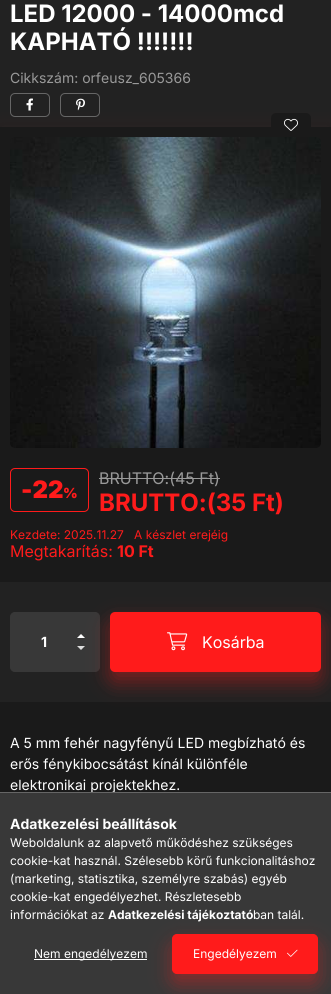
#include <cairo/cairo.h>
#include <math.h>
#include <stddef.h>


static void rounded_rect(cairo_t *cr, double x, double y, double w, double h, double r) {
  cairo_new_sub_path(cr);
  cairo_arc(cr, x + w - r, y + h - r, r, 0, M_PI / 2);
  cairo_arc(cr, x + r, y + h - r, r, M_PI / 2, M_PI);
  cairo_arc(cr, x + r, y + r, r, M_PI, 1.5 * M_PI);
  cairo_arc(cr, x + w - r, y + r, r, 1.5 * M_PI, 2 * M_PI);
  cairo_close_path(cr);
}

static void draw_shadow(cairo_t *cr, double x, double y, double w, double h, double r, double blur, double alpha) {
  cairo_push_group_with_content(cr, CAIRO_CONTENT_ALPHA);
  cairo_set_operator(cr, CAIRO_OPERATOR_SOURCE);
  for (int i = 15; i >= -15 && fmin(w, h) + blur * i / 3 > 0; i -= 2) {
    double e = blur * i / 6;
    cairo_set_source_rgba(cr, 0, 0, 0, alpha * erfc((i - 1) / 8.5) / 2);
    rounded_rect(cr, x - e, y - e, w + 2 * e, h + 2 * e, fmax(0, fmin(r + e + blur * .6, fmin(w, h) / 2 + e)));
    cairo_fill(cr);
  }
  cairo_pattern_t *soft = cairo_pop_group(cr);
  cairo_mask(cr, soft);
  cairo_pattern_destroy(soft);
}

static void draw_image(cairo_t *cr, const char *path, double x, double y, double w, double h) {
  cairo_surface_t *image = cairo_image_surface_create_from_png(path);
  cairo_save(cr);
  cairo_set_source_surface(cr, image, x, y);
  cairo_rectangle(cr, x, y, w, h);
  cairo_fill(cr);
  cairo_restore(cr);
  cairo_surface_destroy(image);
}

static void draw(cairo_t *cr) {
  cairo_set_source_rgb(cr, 34 / 255.0, 34 / 255.0, 34 / 255.0);
  cairo_paint(cr);
  cairo_set_source_rgb(cr, 1, 27 / 255.0, 27 / 255.0);
  draw_shadow(cr, 0, 127, 331, 723, 0, 10, 0.05);
  rounded_rect(cr, 10.5, 93.5, 39, 23, 4.5);
  cairo_set_source_rgb(cr, 102 / 255.0, 102 / 255.0, 102 / 255.0);
  cairo_set_line_width(cr, 1);
  cairo_stroke(cr);
  draw_image(cr, "images/1.png", 26, 98, 7, 13);
  rounded_rect(cr, 60.5, 93.5, 39, 23, 4.5);
  cairo_stroke(cr);
  draw_image(cr, "images/2.png", 76, 98, 9, 13);
  cairo_set_source_rgb(cr, 26 / 255.0, 26 / 255.0, 26 / 255.0);
  cairo_rectangle(cr, 0, 127, 331, 665);
  cairo_fill(cr);
  rounded_rect(cr, 271, 113, 40, 24, 5);
  cairo_fill(cr);
  draw_image(cr, "images/3.png", 284, 118, 14, 13);
  draw_image(cr, "images/4.png", 10, 137, 311, 311);
  rounded_rect(cr, 10.5, 468.5, 78, 43, 4.5);
  cairo_set_source_rgb(cr, 1, 27 / 255.0, 27 / 255.0);
  cairo_stroke(cr);
  cairo_set_source_rgb(cr, 153 / 255.0, 153 / 255.0, 153 / 255.0);
  cairo_rectangle(cr, 99, 478, 121, 1);
  cairo_fill(cr);
  cairo_set_source_rgb(cr, 34 / 255.0, 34 / 255.0, 34 / 255.0);
  cairo_rectangle(cr, 0, 582, 331, 120);
  cairo_fill(cr);
  cairo_set_source_rgb(cr, 56 / 255.0, 56 / 255.0, 56 / 255.0);
  rounded_rect(cr, 10.5, 612.5, 89, 59, 4.5);
  cairo_fill_preserve(cr);
  cairo_stroke(cr);
  cairo_set_source_rgb(cr, 1, 1, 1);
  cairo_new_path(cr);
  cairo_move_to(cr, 85, 638);
  cairo_line_to(cr, 77, 638);
  cairo_line_to(cr, 81, 634);
  cairo_close_path(cr);
  cairo_fill(cr);
  cairo_set_source_rgb(cr, 221 / 255.0, 221 / 255.0, 221 / 255.0);
  cairo_new_path(cr);
  cairo_move_to(cr, 77, 646);
  cairo_line_to(cr, 85, 646);
  cairo_line_to(cr, 81, 650);
  cairo_close_path(cr);
  cairo_fill(cr);
  cairo_set_source_rgb(cr, 1, 27 / 255.0, 27 / 255.0);
  draw_shadow(cr, 110, 622, 211, 60, 5, 10, 0.4);
  cairo_set_source_rgb(cr, 1, 27 / 255.0, 27 / 255.0);
  rounded_rect(cr, 110, 612, 211, 60, 5);
  cairo_fill(cr);
  draw_image(cr, "images/5.png", 167, 632, 21, 19);
  cairo_set_source_rgb(cr, 56 / 255.0, 56 / 255.0, 56 / 255.0);
  cairo_rectangle(cr, 0, 793, 331, 201);
  cairo_fill(cr);
  cairo_set_source_rgb(cr, 1, 1, 1);
  cairo_rectangle(cr, 34, 959, 113, 1);
  cairo_fill(cr);
  cairo_set_source_rgb(cr, 1, 27 / 255.0, 27 / 255.0);
  draw_shadow(cr, 172, 944, 146, 40, 5, 10, 0.4);
  cairo_set_source_rgb(cr, 1, 27 / 255.0, 27 / 255.0);
  rounded_rect(cr, 172.5, 934.5, 145, 39, 4.5);
  cairo_fill_preserve(cr);
  cairo_stroke(cr);
  draw_image(cr, "images/6.png", 287, 949, 11, 8);
  cairo_select_font_face(cr, "Inter", CAIRO_FONT_SLANT_NORMAL, CAIRO_FONT_WEIGHT_BOLD);
  cairo_set_font_size(cr, 24);
  cairo_set_source_rgb(cr, 1, 1, 1);
  cairo_move_to(cr, 10, 22);
  cairo_show_text(cr, "LED 12000 - 14000mcd");
  cairo_move_to(cr, 10, 50);
  cairo_show_text(cr, "KAPHATÓ !!!!!!!");
  cairo_select_font_face(cr, "Inter", CAIRO_FONT_SLANT_NORMAL, CAIRO_FONT_WEIGHT_NORMAL);
  cairo_set_font_size(cr, 14);
  cairo_set_source_rgb(cr, 153 / 255.0, 153 / 255.0, 153 / 255.0);
  cairo_move_to(cr, 10, 83);
  cairo_show_text(cr, "Cikkszám: orfeusz_605366");
  cairo_select_font_face(cr, "Inter Black", CAIRO_FONT_SLANT_NORMAL, CAIRO_FONT_WEIGHT_NORMAL);
  cairo_set_font_size(cr, 24);
  cairo_set_source_rgb(cr, 1, 27 / 255.0, 27 / 255.0);
  cairo_move_to(cr, 21, 498);
  cairo_show_text(cr, "-22");
  cairo_set_font_size(cr, 14);
  cairo_move_to(cr, 63, 498);
  cairo_show_text(cr, "%");
  cairo_select_font_face(cr, "Inter", CAIRO_FONT_SLANT_NORMAL, CAIRO_FONT_WEIGHT_NORMAL);
  cairo_set_font_size(cr, 16);
  cairo_set_source_rgb(cr, 153 / 255.0, 153 / 255.0, 153 / 255.0);
  cairo_move_to(cr, 99, 484);
  cairo_show_text(cr, "BRUTTO:(45 Ft)");
  cairo_select_font_face(cr, "Inter", CAIRO_FONT_SLANT_NORMAL, CAIRO_FONT_WEIGHT_BOLD);
  cairo_set_font_size(cr, 24);
  cairo_set_source_rgb(cr, 1, 27 / 255.0, 27 / 255.0);
  cairo_move_to(cr, 99, 511);
  cairo_show_text(cr, "BRUTTO:(35 Ft)");
  cairo_select_font_face(cr, "Inter", CAIRO_FONT_SLANT_NORMAL, CAIRO_FONT_WEIGHT_NORMAL);
  cairo_set_font_size(cr, 12);
  cairo_move_to(cr, 10, 539);
  cairo_show_text(cr, "Kezdete: 2025.11.27");
  cairo_move_to(cr, 134, 539);
  cairo_show_text(cr, "A készlet erejéig");
  cairo_set_font_size(cr, 16);
  cairo_move_to(cr, 10, 557);
  cairo_show_text(cr, "Megtakarítás:");
  cairo_select_font_face(cr, "Inter", CAIRO_FONT_SLANT_NORMAL, CAIRO_FONT_WEIGHT_BOLD);
  cairo_move_to(cr, 117, 557);
  cairo_show_text(cr, "10 Ft");
  cairo_set_font_size(cr, 14);
  cairo_set_source_rgb(cr, 1, 1, 1);
  cairo_move_to(cr, 41, 647);
  cairo_show_text(cr, "1");
  cairo_select_font_face(cr, "Inter", CAIRO_FONT_SLANT_NORMAL, CAIRO_FONT_WEIGHT_NORMAL);
  cairo_set_font_size(cr, 16);
  cairo_move_to(cr, 202, 648);
  cairo_show_text(cr, "Kosárba");
  cairo_set_font_size(cr, 14);
  cairo_move_to(cr, 10, 748);
  cairo_show_text(cr, "A 5 mm fehér nagyfényű LED megbízható és");
  cairo_move_to(cr, 10, 769);
  cairo_show_text(cr, "erős fénykibocsátást kínál különféle");
  cairo_move_to(cr, 10, 790);
  cairo_show_text(cr, "elektronikai projektekhez.");
  cairo_set_source_rgb(cr, 102 / 255.0, 102 / 255.0, 102 / 255.0);
  cairo_rectangle(cr, 0, 792, 331, 1);
  cairo_fill(cr);
  cairo_select_font_face(cr, "Inter", CAIRO_FONT_SLANT_NORMAL, CAIRO_FONT_WEIGHT_BOLD);
  cairo_set_source_rgb(cr, 1, 1, 1);
  cairo_move_to(cr, 10, 829);
  cairo_show_text(cr, "Adatkezelési beállítások");
  cairo_select_font_face(cr, "Inter", CAIRO_FONT_SLANT_NORMAL, CAIRO_FONT_WEIGHT_NORMAL);
  cairo_set_font_size(cr, 12);
  cairo_move_to(cr, 10, 847);
  cairo_show_text(cr, "Weboldalunk az alapvető működéshez szükséges");
  cairo_move_to(cr, 10, 865);
  cairo_show_text(cr, "cookie-kat használ. Szélesebb körű funkcionalitáshoz");
  cairo_move_to(cr, 10, 883);
  cairo_show_text(cr, "(marketing, statisztika, személyre szabás) egyéb");
  cairo_move_to(cr, 10, 901);
  cairo_show_text(cr, "cookie-kat engedélyezhet. Részletesebb");
  cairo_move_to(cr, 10, 919);
  cairo_show_text(cr, "információkat az");
  cairo_select_font_face(cr, "Inter", CAIRO_FONT_SLANT_NORMAL, CAIRO_FONT_WEIGHT_BOLD);
  cairo_move_to(cr, 108, 919);
  cairo_show_text(cr, "Adatkezelési tájékoztató");
  cairo_select_font_face(cr, "Inter", CAIRO_FONT_SLANT_NORMAL, CAIRO_FONT_WEIGHT_NORMAL);
  cairo_move_to(cr, 253, 919);
  cairo_show_text(cr, "ban talál.");
  cairo_move_to(cr, 34, 958);
  cairo_show_text(cr, "Nem engedélyezem");
  cairo_move_to(cr, 193, 958);
  cairo_show_text(cr, "Engedélyezem");
}

int main(void) {
  cairo_surface_t *surface = cairo_image_surface_create(CAIRO_FORMAT_RGB24, 331, 994);
  cairo_t *cr = cairo_create(surface);
  cairo_font_options_t *options = cairo_font_options_create();
  cairo_font_options_set_hint_metrics(options, CAIRO_HINT_METRICS_OFF);
  cairo_font_options_set_hint_style(options, CAIRO_HINT_STYLE_NONE);
  cairo_set_font_options(cr, options);
  cairo_set_miter_limit(cr, 4);
  draw(cr);
  cairo_surface_write_to_png(surface, "out.png");
  cairo_font_options_destroy(options);
  cairo_destroy(cr);
  cairo_surface_destroy(surface);
  return 0;
}
